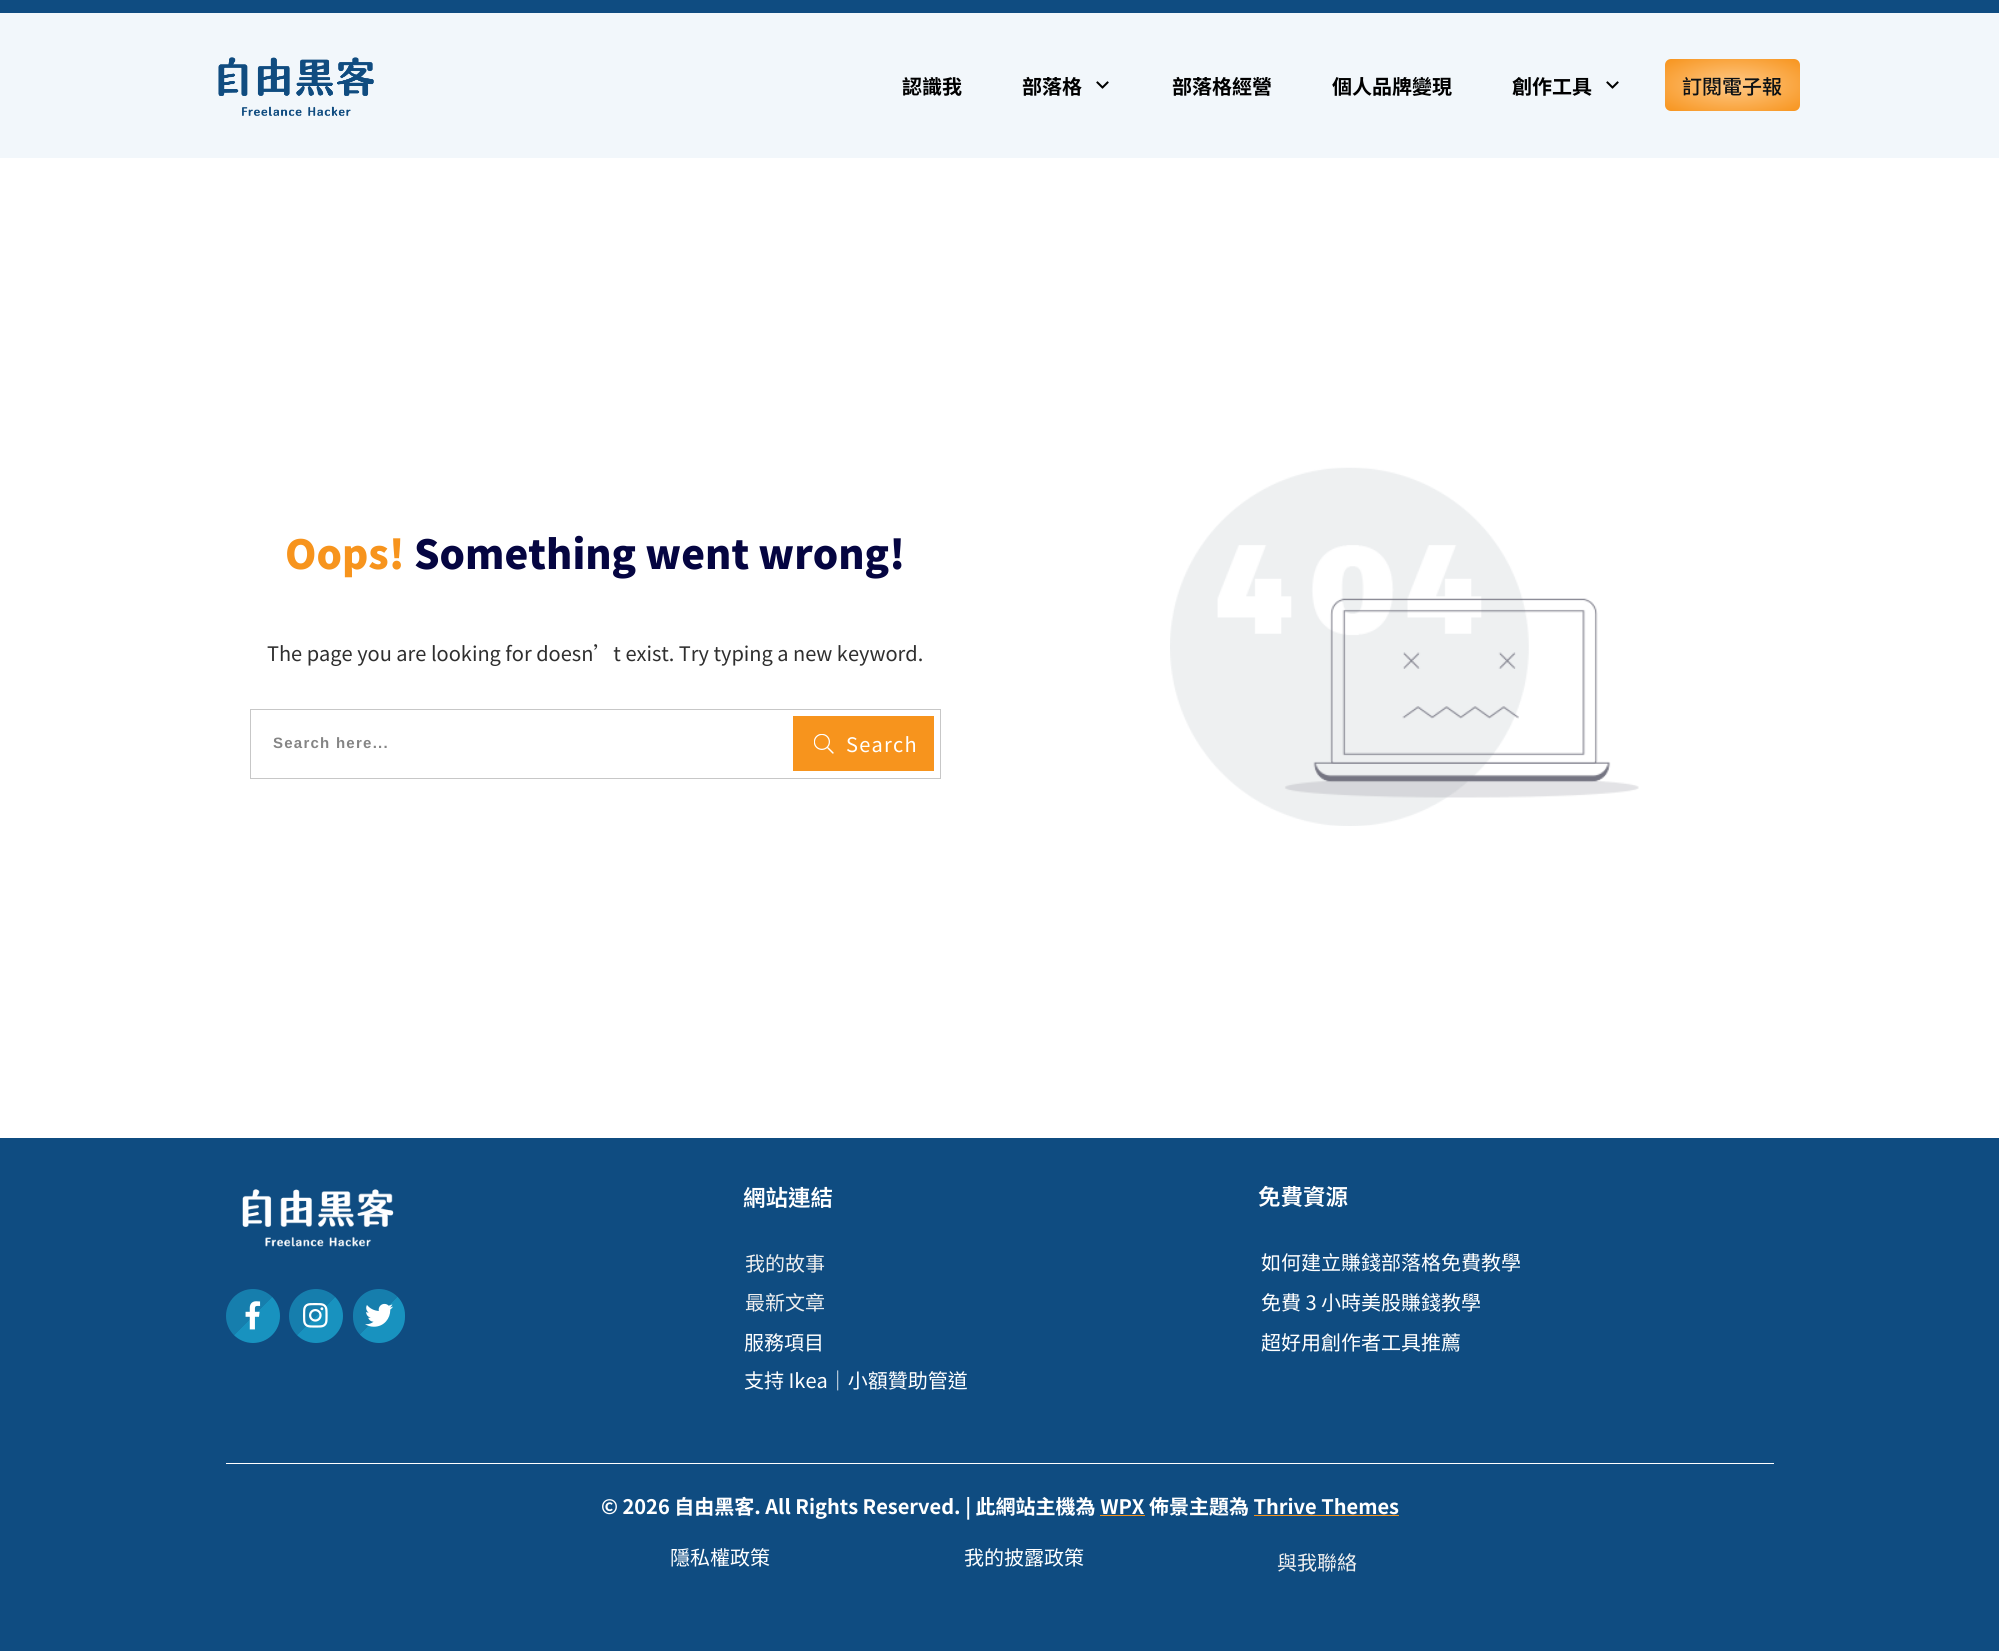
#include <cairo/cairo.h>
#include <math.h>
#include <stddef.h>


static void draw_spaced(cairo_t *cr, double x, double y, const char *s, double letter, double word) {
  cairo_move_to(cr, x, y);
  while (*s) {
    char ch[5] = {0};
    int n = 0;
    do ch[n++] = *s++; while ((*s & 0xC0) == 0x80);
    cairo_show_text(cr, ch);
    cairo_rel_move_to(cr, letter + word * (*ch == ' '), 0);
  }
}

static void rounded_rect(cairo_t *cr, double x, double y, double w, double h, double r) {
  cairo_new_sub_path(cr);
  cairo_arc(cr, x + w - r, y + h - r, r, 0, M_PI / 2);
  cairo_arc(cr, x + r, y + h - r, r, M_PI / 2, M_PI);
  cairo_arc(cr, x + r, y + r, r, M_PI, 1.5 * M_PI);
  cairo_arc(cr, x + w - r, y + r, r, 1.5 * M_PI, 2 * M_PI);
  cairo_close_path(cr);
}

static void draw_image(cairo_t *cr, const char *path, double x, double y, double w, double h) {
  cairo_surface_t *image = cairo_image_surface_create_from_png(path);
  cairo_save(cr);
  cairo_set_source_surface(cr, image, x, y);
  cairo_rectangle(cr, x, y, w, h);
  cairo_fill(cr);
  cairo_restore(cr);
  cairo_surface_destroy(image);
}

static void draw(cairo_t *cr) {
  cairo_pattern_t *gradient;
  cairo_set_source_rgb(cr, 1, 1, 1);
  cairo_paint(cr);
  cairo_set_source_rgb(cr, 15 / 255.0, 76 / 255.0, 129 / 255.0);
  cairo_rectangle(cr, 0, 0, 1999, 13);
  cairo_fill(cr);
  cairo_set_source_rgb(cr, 242 / 255.0, 247 / 255.0, 251 / 255.0);
  cairo_rectangle(cr, 0, 13, 1999, 145);
  cairo_fill(cr);
  draw_image(cr, "images/1.png", 218, 57, 156, 59);
  draw_image(cr, "images/2.png", 1096, 81, 13, 8);
  draw_image(cr, "images/2.png", 1606, 81, 13, 8);
  gradient = cairo_pattern_create_radial(0, 0, 0, 0, 0, 1);
  cairo_pattern_set_matrix(gradient, &(cairo_matrix_t){1.0 / 95, 0, 0, 1.0 / 37, -1.0 * 1733 / 95, -1.0 * 85 / 37});
  cairo_pattern_add_color_stop_rgba(gradient, 0, 1, 201 / 255.0, 135 / 255.0, 1);
  cairo_pattern_add_color_stop_rgba(gradient, 1, 247 / 255.0, 148 / 255.0, 29 / 255.0, 1);
  cairo_set_source(cr, gradient);
  cairo_pattern_destroy(gradient);
  rounded_rect(cr, 1665, 59, 135, 52, 6);
  cairo_fill(cr);
  cairo_rectangle(cr, 250.5, 709.5, 690, 69);
  cairo_set_source_rgb(cr, 199 / 255.0, 199 / 255.0, 199 / 255.0);
  cairo_set_line_width(cr, 1);
  cairo_stroke(cr);
  cairo_set_source_rgb(cr, 247 / 255.0, 148 / 255.0, 29 / 255.0);
  cairo_rectangle(cr, 793, 716, 141, 55);
  cairo_fill(cr);
  draw_image(cr, "images/3.png", 814, 734, 20, 20);
  draw_image(cr, "images/4.png", 1170, 467, 469, 359);
  cairo_set_source_rgb(cr, 15 / 255.0, 76 / 255.0, 129 / 255.0);
  cairo_rectangle(cr, 0, 1138, 1999, 513);
  cairo_fill(cr);
  draw_image(cr, "images/5.png", 242, 1189, 152, 58);
  gradient = cairo_pattern_create_linear(226, 1289, 280, 1343);
  cairo_pattern_add_color_stop_rgba(gradient, 0.5, 22 / 255.0, 126 / 255.0, 173 / 255.0, 1);
  cairo_pattern_add_color_stop_rgba(gradient, 0.5, 24 / 255.0, 146 / 255.0, 191 / 255.0, 1);
  cairo_set_source(cr, gradient);
  cairo_pattern_destroy(gradient);
  cairo_arc(cr, 253, 1316, 27, 0, 2 * M_PI);
  cairo_fill(cr);
  draw_image(cr, "images/6.png", 245, 1301, 16, 29);
  gradient = cairo_pattern_create_linear(289, 1289, 343, 1343);
  cairo_pattern_add_color_stop_rgba(gradient, 0.5, 22 / 255.0, 126 / 255.0, 173 / 255.0, 1);
  cairo_pattern_add_color_stop_rgba(gradient, 0.5, 24 / 255.0, 146 / 255.0, 191 / 255.0, 1);
  cairo_set_source(cr, gradient);
  cairo_pattern_destroy(gradient);
  cairo_arc(cr, 316, 1316, 27, 0, 2 * M_PI);
  cairo_fill(cr);
  draw_image(cr, "images/7.png", 303, 1303, 25, 25);
  gradient = cairo_pattern_create_linear(352, 1289, 406, 1342);
  cairo_pattern_add_color_stop_rgba(gradient, 0.5, 22 / 255.0, 126 / 255.0, 173 / 255.0, 1);
  cairo_pattern_add_color_stop_rgba(gradient, 0.5, 24 / 255.0, 146 / 255.0, 191 / 255.0, 1);
  cairo_set_source(cr, gradient);
  cairo_pattern_destroy(gradient);
  rounded_rect(cr, 353, 1289, 52, 54, 26);
  cairo_fill(cr);
  draw_image(cr, "images/8.png", 365, 1303, 28, 24);
  cairo_set_source_rgb(cr, 1, 1, 1);
  cairo_rectangle(cr, 226, 1463, 1548, 1);
  cairo_fill(cr);
  cairo_select_font_face(cr, "Noto Sans TC", CAIRO_FONT_SLANT_NORMAL, CAIRO_FONT_WEIGHT_BOLD);
  cairo_set_font_size(cr, 20);
  cairo_set_source_rgb(cr, 0, 0, 0);
  cairo_move_to(cr, 902, 94);
  cairo_show_text(cr, "認識我");
  cairo_move_to(cr, 1022, 94);
  cairo_show_text(cr, "部落格");
  cairo_move_to(cr, 1172, 94);
  cairo_show_text(cr, "部落格經營");
  cairo_move_to(cr, 1332, 94);
  cairo_show_text(cr, "個人品牌變現");
  cairo_move_to(cr, 1512, 94);
  cairo_show_text(cr, "創作工具");
  cairo_select_font_face(cr, "Noto Sans TC Medium", CAIRO_FONT_SLANT_NORMAL, CAIRO_FONT_WEIGHT_NORMAL);
  cairo_set_source_rgb(cr, 12 / 255.0, 17 / 255.0, 21 / 255.0);
  cairo_move_to(cr, 1682, 94);
  cairo_show_text(cr, "訂閱電子報");
  cairo_select_font_face(cr, "Noto Sans TC Black", CAIRO_FONT_SLANT_NORMAL, CAIRO_FONT_WEIGHT_NORMAL);
  cairo_set_font_size(cr, 40);
  cairo_set_source_rgb(cr, 247 / 255.0, 148 / 255.0, 29 / 255.0);
  cairo_move_to(cr, 285, 569);
  cairo_show_text(cr, "Oops!");
  cairo_set_source_rgb(cr, 5 / 255.0, 5 / 255.0, 65 / 255.0);
  cairo_move_to(cr, 414, 569);
  cairo_show_text(cr, "Something went wrong!");
  cairo_select_font_face(cr, "Noto Sans TC", CAIRO_FONT_SLANT_NORMAL, CAIRO_FONT_WEIGHT_NORMAL);
  cairo_set_font_size(cr, 20);
  cairo_set_source_rgb(cr, 47 / 255.0, 47 / 255.0, 47 / 255.0);
  cairo_move_to(cr, 267, 661);
  cairo_show_text(cr, "The page you are looking for doesn’t exist. Try typing a new keyword.");
  cairo_select_font_face(cr, "Liberation Sans", CAIRO_FONT_SLANT_NORMAL, CAIRO_FONT_WEIGHT_BOLD);
  cairo_set_font_size(cr, 15);
  cairo_set_source_rgb(cr, 133 / 255.0, 133 / 255.0, 133 / 255.0);
  draw_spaced(cr, 273, 748, "Search here...", 1.25, 0);
  cairo_select_font_face(cr, "Noto Sans TC", CAIRO_FONT_SLANT_NORMAL, CAIRO_FONT_WEIGHT_NORMAL);
  cairo_set_font_size(cr, 20);
  cairo_set_source_rgb(cr, 1, 1, 1);
  draw_spaced(cr, 846, 752, "Search", 1.25, 0);
  cairo_select_font_face(cr, "Noto Sans TC SemiBold", CAIRO_FONT_SLANT_NORMAL, CAIRO_FONT_WEIGHT_NORMAL);
  cairo_set_font_size(cr, 22.5);
  cairo_move_to(cr, 743, 1206);
  cairo_show_text(cr, "網站連結");
  cairo_select_font_face(cr, "Noto Sans TC", CAIRO_FONT_SLANT_NORMAL, CAIRO_FONT_WEIGHT_NORMAL);
  cairo_set_font_size(cr, 20);
  cairo_set_source_rgb(cr, 239 / 255.0, 239 / 255.0, 239 / 255.0);
  cairo_move_to(cr, 745, 1271);
  cairo_show_text(cr, "我的故事");
  cairo_move_to(cr, 745, 1310);
  cairo_show_text(cr, "最新文章");
  cairo_set_source_rgb(cr, 1, 1, 1);
  cairo_move_to(cr, 744, 1350);
  cairo_show_text(cr, "服務項目");
  cairo_move_to(cr, 744, 1388);
  cairo_show_text(cr, "支持 Ikea｜小額贊助管道");
  cairo_select_font_face(cr, "Noto Sans TC SemiBold", CAIRO_FONT_SLANT_NORMAL, CAIRO_FONT_WEIGHT_NORMAL);
  cairo_set_font_size(cr, 22.5);
  cairo_move_to(cr, 1258, 1205);
  cairo_show_text(cr, "免費資源");
  cairo_select_font_face(cr, "Noto Sans TC", CAIRO_FONT_SLANT_NORMAL, CAIRO_FONT_WEIGHT_NORMAL);
  cairo_set_font_size(cr, 20);
  cairo_move_to(cr, 1261, 1270);
  cairo_show_text(cr, "如何建立賺錢部落格免費教學");
  cairo_move_to(cr, 1261, 1310);
  cairo_show_text(cr, "免費 3 小時美股賺錢教學");
  cairo_move_to(cr, 1261, 1350);
  cairo_show_text(cr, "超好用創作者工具推薦");
  cairo_select_font_face(cr, "Noto Sans TC", CAIRO_FONT_SLANT_NORMAL, CAIRO_FONT_WEIGHT_BOLD);
  cairo_move_to(cr, 601, 1514);
  cairo_show_text(cr, "© 2026 自由黑客. All Rights Reserved. | 此網站主機為 WPX 佈景主題為 Thrive Themes");
  cairo_set_source_rgb(cr, 247 / 255.0, 148 / 255.0, 29 / 255.0);
  cairo_rectangle(cr, 1100, 1515, 45, 1);
  cairo_fill(cr);
  cairo_rectangle(cr, 1254, 1515, 145, 1);
  cairo_fill(cr);
  cairo_select_font_face(cr, "Noto Sans TC", CAIRO_FONT_SLANT_NORMAL, CAIRO_FONT_WEIGHT_NORMAL);
  cairo_set_source_rgb(cr, 1, 1, 1);
  cairo_move_to(cr, 670, 1565);
  cairo_show_text(cr, "隱私權政策");
  cairo_move_to(cr, 964, 1565);
  cairo_show_text(cr, "我的披露政策");
  cairo_set_source_rgb(cr, 239 / 255.0, 239 / 255.0, 239 / 255.0);
  cairo_move_to(cr, 1277, 1570);
  cairo_show_text(cr, "與我聯絡");
}

int main(void) {
  cairo_surface_t *surface = cairo_image_surface_create(CAIRO_FORMAT_RGB24, 1999, 1651);
  cairo_t *cr = cairo_create(surface);
  cairo_font_options_t *options = cairo_font_options_create();
  cairo_font_options_set_hint_metrics(options, CAIRO_HINT_METRICS_OFF);
  cairo_font_options_set_hint_style(options, CAIRO_HINT_STYLE_NONE);
  cairo_set_font_options(cr, options);
  cairo_set_miter_limit(cr, 4);
  draw(cr);
  cairo_surface_write_to_png(surface, "out.png");
  cairo_font_options_destroy(options);
  cairo_destroy(cr);
  cairo_surface_destroy(surface);
  return 0;
}
